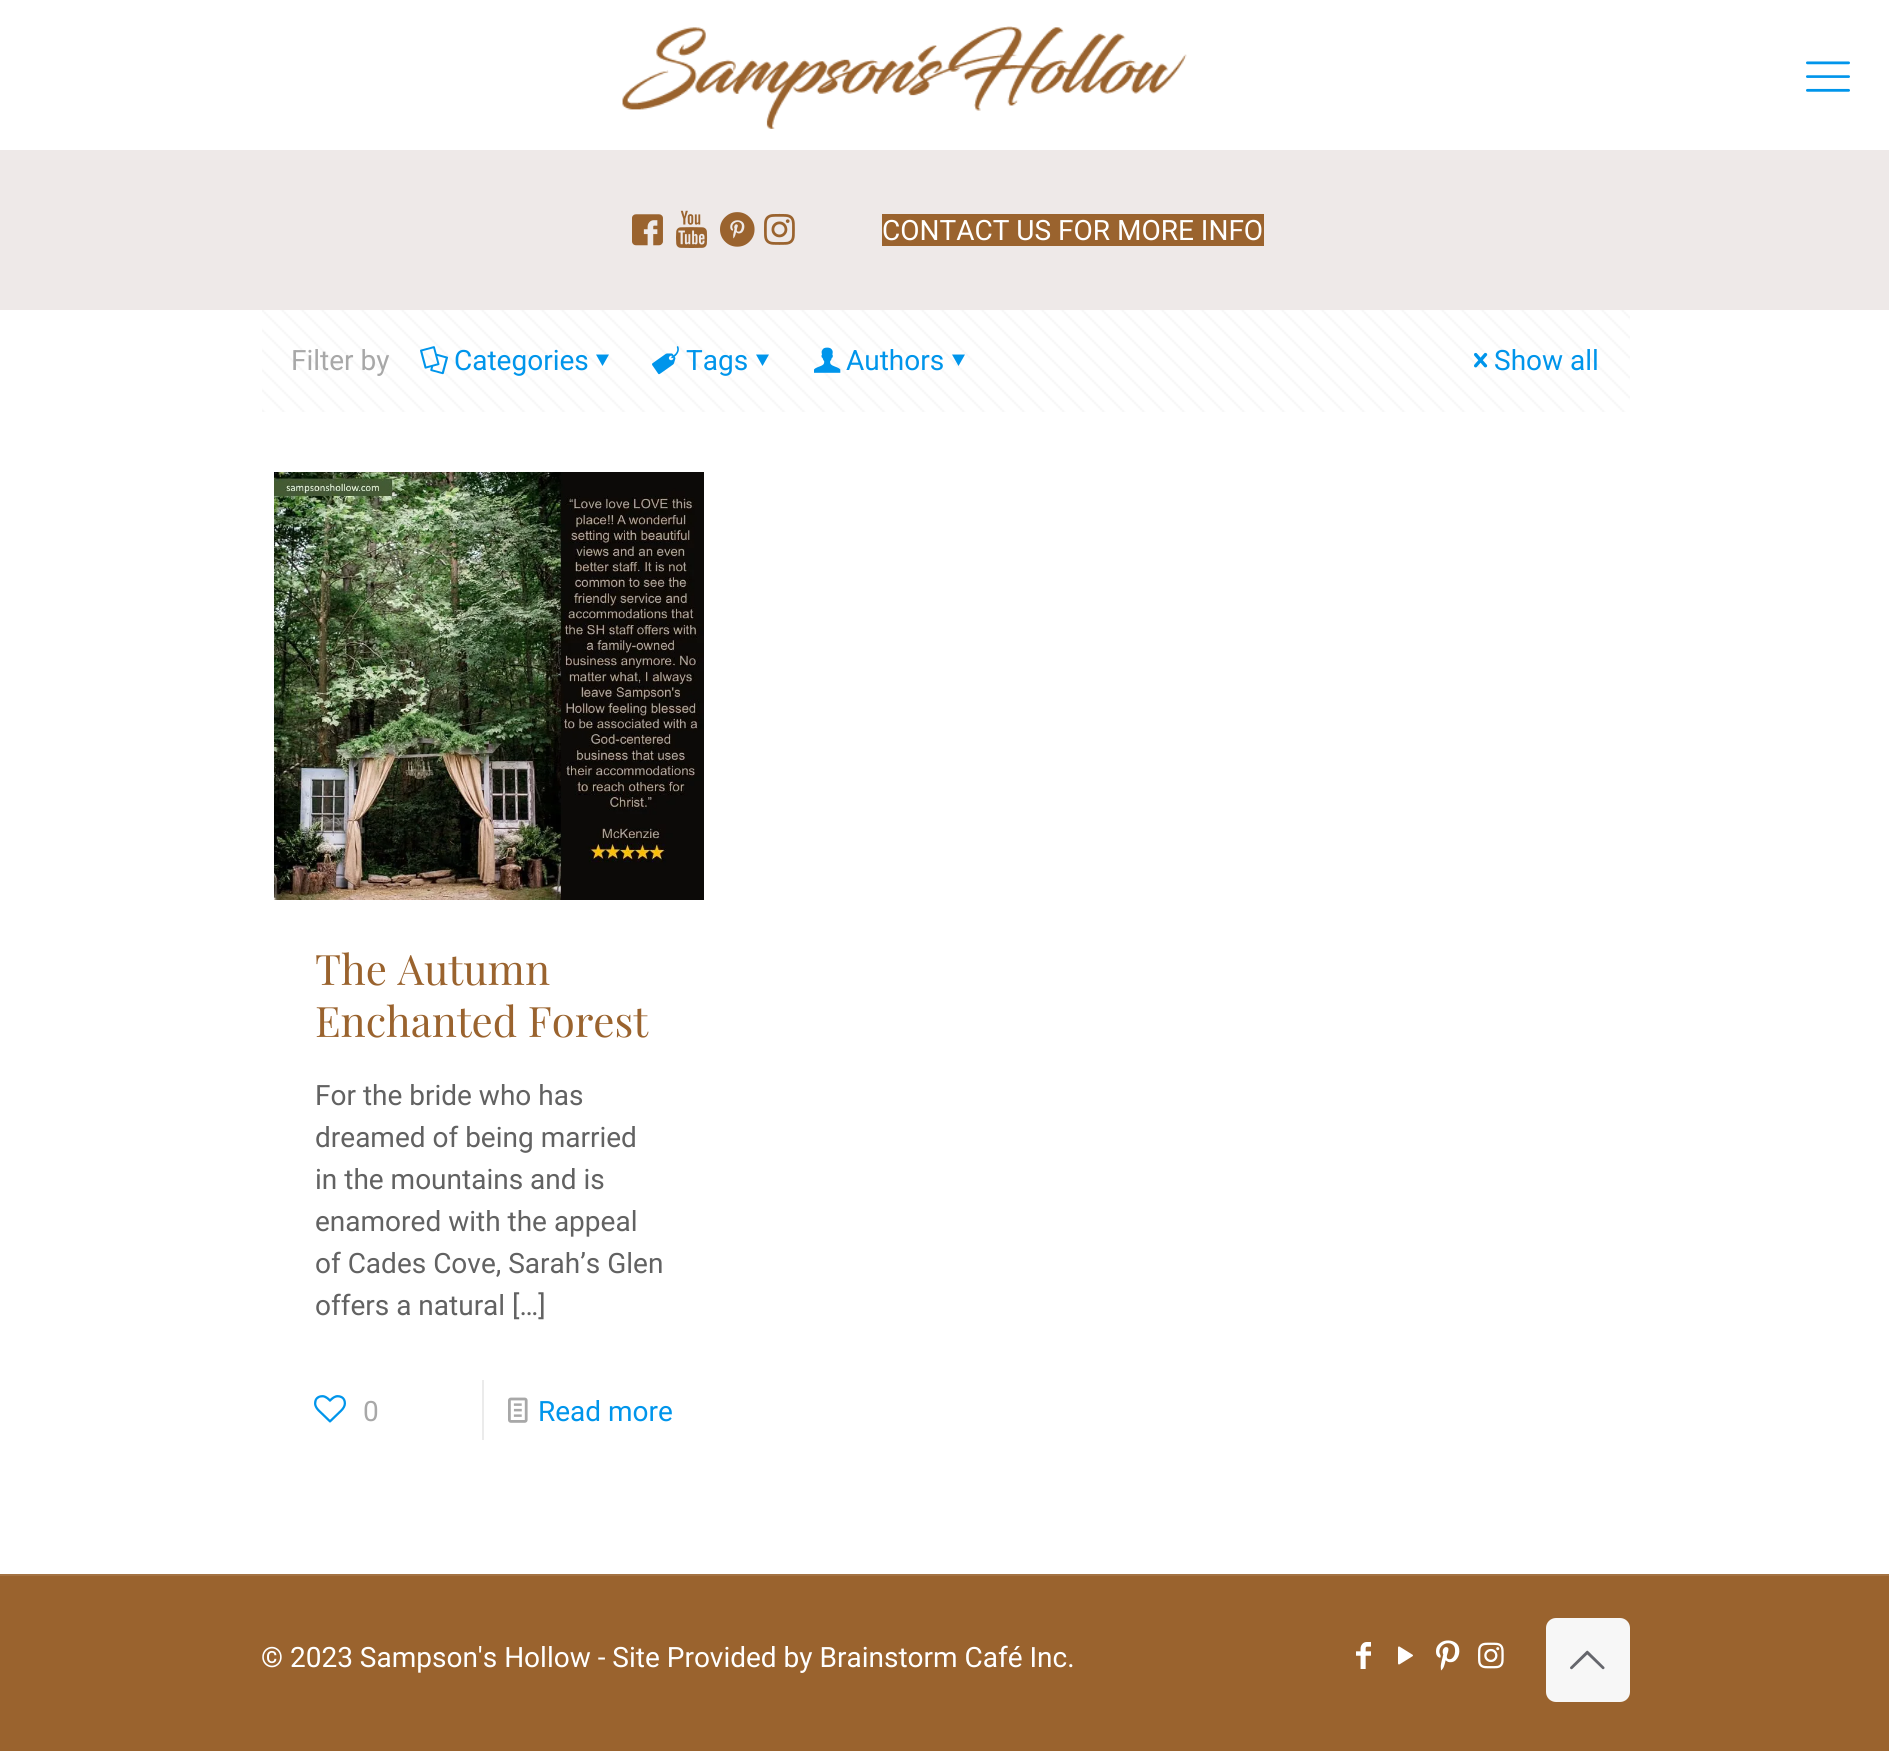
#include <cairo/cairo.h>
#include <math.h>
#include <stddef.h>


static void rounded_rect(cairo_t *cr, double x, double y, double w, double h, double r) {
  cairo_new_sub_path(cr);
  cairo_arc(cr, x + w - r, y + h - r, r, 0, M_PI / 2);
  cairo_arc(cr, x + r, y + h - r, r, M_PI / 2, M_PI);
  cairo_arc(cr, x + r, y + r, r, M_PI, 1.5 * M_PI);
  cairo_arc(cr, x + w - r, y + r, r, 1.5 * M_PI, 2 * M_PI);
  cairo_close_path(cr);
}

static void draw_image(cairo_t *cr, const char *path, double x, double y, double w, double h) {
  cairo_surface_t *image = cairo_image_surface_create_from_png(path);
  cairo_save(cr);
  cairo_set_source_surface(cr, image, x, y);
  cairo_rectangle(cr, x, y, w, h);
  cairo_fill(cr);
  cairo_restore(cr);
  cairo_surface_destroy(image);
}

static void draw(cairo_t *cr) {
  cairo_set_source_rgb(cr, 1, 1, 1);
  cairo_paint(cr);
  cairo_set_source_rgb(cr, 238 / 255.0, 233 / 255.0, 232 / 255.0);
  cairo_rectangle(cr, 0, 150, 1889, 160);
  cairo_fill(cr);
  draw_image(cr, "images/1.png", 622, 26, 565, 103);
  draw_image(cr, "images/2.png", 1806, 61, 44, 31);
  draw_image(cr, "images/3.png", 632, 214, 31, 32);
  draw_image(cr, "images/4.png", 676, 210, 32, 38);
  draw_image(cr, "images/5.png", 720, 212, 35, 35);
  draw_image(cr, "images/6.png", 764, 213, 31, 32);
  cairo_set_source_rgb(cr, 154 / 255.0, 99 / 255.0, 46 / 255.0);
  cairo_rectangle(cr, 882, 214, 382, 32);
  cairo_fill(cr);
  draw_image(cr, "images/7.png", 262, 310, 1368, 102);
  draw_image(cr, "images/8.png", 420, 346, 28, 29);
  cairo_set_source_rgb(cr, 0, 149 / 255.0, 235 / 255.0);
  cairo_new_path(cr);
  cairo_move_to(cr, 609, 354.5);
  cairo_line_to(cr, 602.5, 366);
  cairo_line_to(cr, 596, 354.5);
  cairo_close_path(cr);
  cairo_fill(cr);
  draw_image(cr, "images/9.png", 652, 346, 27, 29);
  cairo_new_path(cr);
  cairo_move_to(cr, 769, 354.5);
  cairo_line_to(cr, 762.5, 366);
  cairo_line_to(cr, 756, 354.5);
  cairo_close_path(cr);
  cairo_fill(cr);
  draw_image(cr, "images/10.png", 814, 347, 27, 26);
  cairo_new_path(cr);
  cairo_move_to(cr, 965, 354.5);
  cairo_line_to(cr, 958.5, 366);
  cairo_line_to(cr, 952, 354.5);
  cairo_close_path(cr);
  cairo_fill(cr);
  draw_image(cr, "images/11.png", 1474, 352, 14, 16);
  draw_image(cr, "images/12.png", 274, 472, 430, 428);
  draw_image(cr, "images/13.png", 314, 1395, 32, 28);
  cairo_set_source_rgb(cr, 235 / 255.0, 235 / 255.0, 235 / 255.0);
  cairo_rectangle(cr, 482, 1380, 2, 60);
  cairo_fill(cr);
  draw_image(cr, "images/14.png", 508, 1397, 20, 26);
  cairo_set_source_rgb(cr, 154 / 255.0, 99 / 255.0, 46 / 255.0);
  cairo_rectangle(cr, 0, 1576, 1889, 175);
  cairo_fill(cr);
  cairo_set_source_rgb(cr, 164 / 255.0, 115 / 255.0, 67 / 255.0);
  cairo_rectangle(cr, 0, 1574, 1889, 2);
  cairo_fill(cr);
  draw_image(cr, "images/15.png", 1356, 1642, 15, 27);
  draw_image(cr, "images/16.png", 1398, 1646, 15, 19);
  draw_image(cr, "images/17.png", 1436, 1640, 24, 31);
  draw_image(cr, "images/18.png", 1478, 1642, 26, 27);
  cairo_set_source_rgb(cr, 247 / 255.0, 247 / 255.0, 247 / 255.0);
  rounded_rect(cr, 1546, 1618, 84, 84, 10);
  cairo_fill(cr);
  draw_image(cr, "images/19.png", 1570, 1650, 35, 20);
  cairo_select_font_face(cr, "Roboto", CAIRO_FONT_SLANT_NORMAL, CAIRO_FONT_WEIGHT_NORMAL);
  cairo_set_font_size(cr, 28);
  cairo_set_source_rgb(cr, 1, 1, 1);
  cairo_move_to(cr, 882, 240);
  cairo_show_text(cr, "CONTACT US FOR MORE INFO");
  cairo_set_source_rgb(cr, 168 / 255.0, 168 / 255.0, 168 / 255.0);
  cairo_move_to(cr, 291, 370);
  cairo_show_text(cr, "Filter by");
  cairo_set_source_rgb(cr, 0, 149 / 255.0, 235 / 255.0);
  cairo_move_to(cr, 454, 370);
  cairo_show_text(cr, "Categories");
  cairo_move_to(cr, 686, 370);
  cairo_show_text(cr, "Tags");
  cairo_move_to(cr, 846, 370);
  cairo_show_text(cr, "Authors");
  cairo_move_to(cr, 1494, 370);
  cairo_show_text(cr, "Show all");
  cairo_select_font_face(cr, "Playfair Display", CAIRO_FONT_SLANT_NORMAL, CAIRO_FONT_WEIGHT_NORMAL);
  cairo_set_font_size(cr, 42);
  cairo_set_source_rgb(cr, 154 / 255.0, 99 / 255.0, 46 / 255.0);
  cairo_move_to(cr, 315, 985);
  cairo_show_text(cr, "The Autumn");
  cairo_move_to(cr, 315, 1037);
  cairo_show_text(cr, "Enchanted Forest");
  cairo_select_font_face(cr, "Roboto", CAIRO_FONT_SLANT_NORMAL, CAIRO_FONT_WEIGHT_NORMAL);
  cairo_set_font_size(cr, 28);
  cairo_set_source_rgb(cr, 98 / 255.0, 98 / 255.0, 98 / 255.0);
  cairo_move_to(cr, 315, 1105);
  cairo_show_text(cr, "For the bride who has");
  cairo_move_to(cr, 315, 1147);
  cairo_show_text(cr, "dreamed of being married");
  cairo_move_to(cr, 315, 1189);
  cairo_show_text(cr, "in the mountains and is");
  cairo_move_to(cr, 315, 1231);
  cairo_show_text(cr, "enamored with the appeal");
  cairo_move_to(cr, 315, 1273);
  cairo_show_text(cr, "of Cades Cove, Sarah’s Glen");
  cairo_move_to(cr, 315, 1315);
  cairo_show_text(cr, "offers a natural […]");
  cairo_set_source_rgb(cr, 168 / 255.0, 168 / 255.0, 168 / 255.0);
  cairo_move_to(cr, 363, 1421);
  cairo_show_text(cr, "0");
  cairo_set_source_rgb(cr, 0, 149 / 255.0, 235 / 255.0);
  cairo_move_to(cr, 538, 1421);
  cairo_show_text(cr, "Read more");
  cairo_set_source_rgb(cr, 1, 1, 1);
  cairo_move_to(cr, 261, 1667);
  cairo_show_text(cr, "© 2023 Sampson's Hollow - Site Provided by Brainstorm Café Inc.");
}

int main(void) {
  cairo_surface_t *surface = cairo_image_surface_create(CAIRO_FORMAT_RGB24, 1889, 1751);
  cairo_t *cr = cairo_create(surface);
  cairo_font_options_t *options = cairo_font_options_create();
  cairo_font_options_set_hint_metrics(options, CAIRO_HINT_METRICS_OFF);
  cairo_font_options_set_hint_style(options, CAIRO_HINT_STYLE_NONE);
  cairo_set_font_options(cr, options);
  cairo_set_miter_limit(cr, 4);
  draw(cr);
  cairo_surface_write_to_png(surface, "out.png");
  cairo_font_options_destroy(options);
  cairo_destroy(cr);
  cairo_surface_destroy(surface);
  return 0;
}
